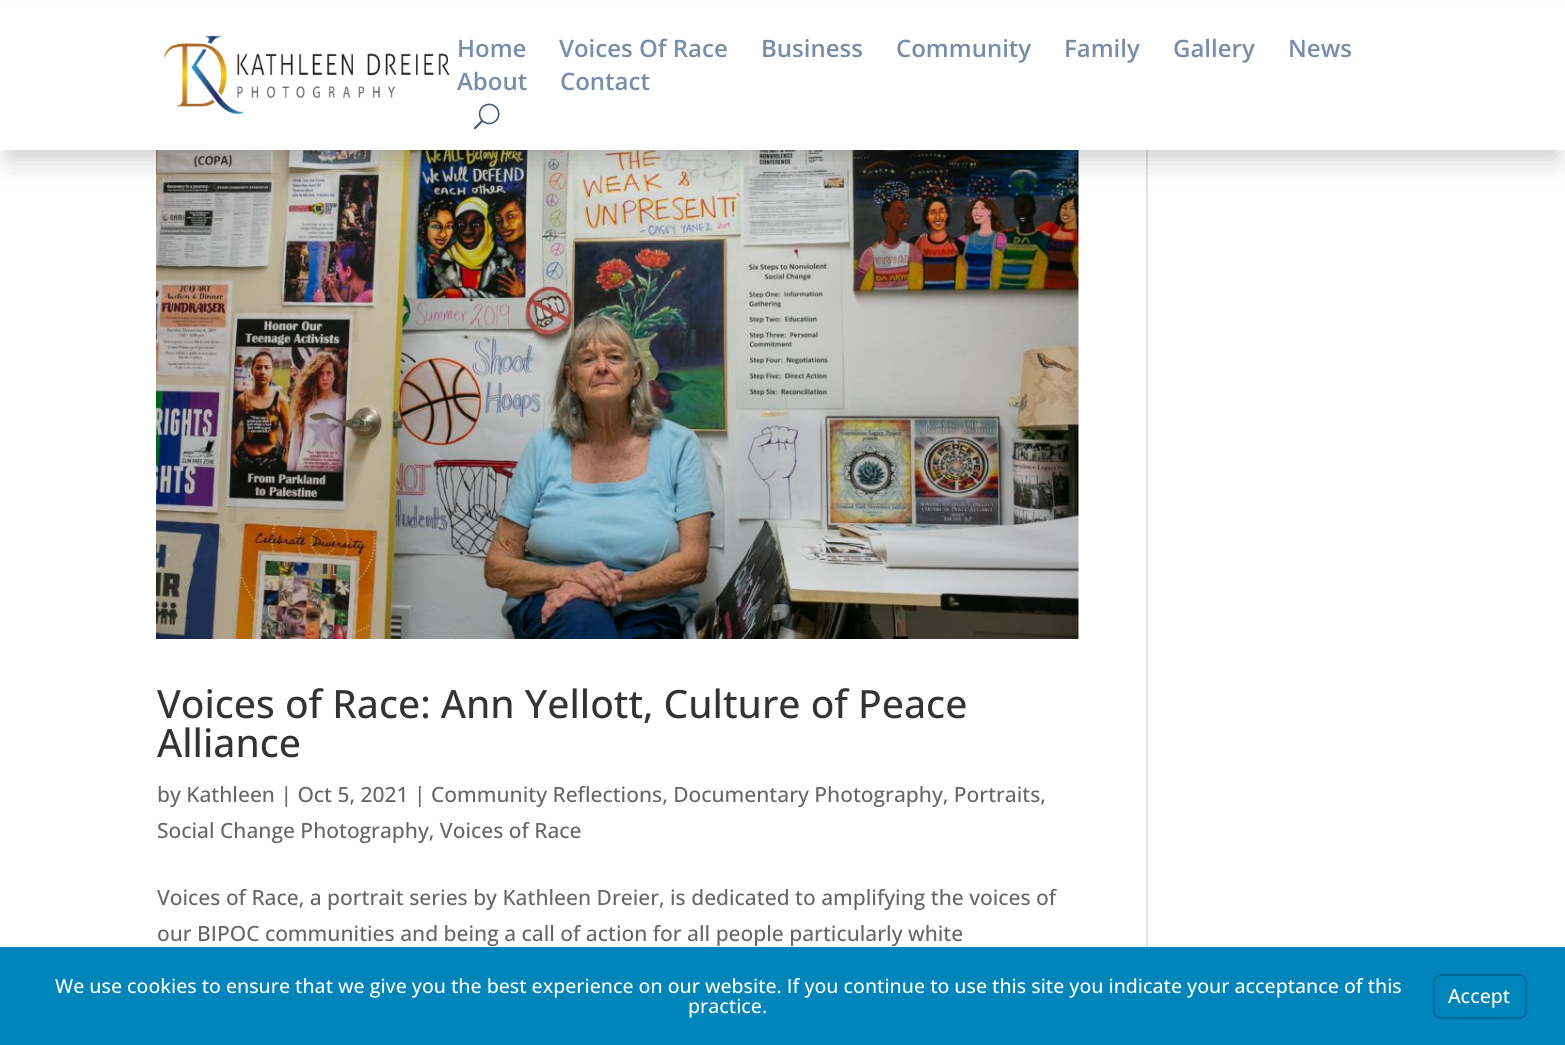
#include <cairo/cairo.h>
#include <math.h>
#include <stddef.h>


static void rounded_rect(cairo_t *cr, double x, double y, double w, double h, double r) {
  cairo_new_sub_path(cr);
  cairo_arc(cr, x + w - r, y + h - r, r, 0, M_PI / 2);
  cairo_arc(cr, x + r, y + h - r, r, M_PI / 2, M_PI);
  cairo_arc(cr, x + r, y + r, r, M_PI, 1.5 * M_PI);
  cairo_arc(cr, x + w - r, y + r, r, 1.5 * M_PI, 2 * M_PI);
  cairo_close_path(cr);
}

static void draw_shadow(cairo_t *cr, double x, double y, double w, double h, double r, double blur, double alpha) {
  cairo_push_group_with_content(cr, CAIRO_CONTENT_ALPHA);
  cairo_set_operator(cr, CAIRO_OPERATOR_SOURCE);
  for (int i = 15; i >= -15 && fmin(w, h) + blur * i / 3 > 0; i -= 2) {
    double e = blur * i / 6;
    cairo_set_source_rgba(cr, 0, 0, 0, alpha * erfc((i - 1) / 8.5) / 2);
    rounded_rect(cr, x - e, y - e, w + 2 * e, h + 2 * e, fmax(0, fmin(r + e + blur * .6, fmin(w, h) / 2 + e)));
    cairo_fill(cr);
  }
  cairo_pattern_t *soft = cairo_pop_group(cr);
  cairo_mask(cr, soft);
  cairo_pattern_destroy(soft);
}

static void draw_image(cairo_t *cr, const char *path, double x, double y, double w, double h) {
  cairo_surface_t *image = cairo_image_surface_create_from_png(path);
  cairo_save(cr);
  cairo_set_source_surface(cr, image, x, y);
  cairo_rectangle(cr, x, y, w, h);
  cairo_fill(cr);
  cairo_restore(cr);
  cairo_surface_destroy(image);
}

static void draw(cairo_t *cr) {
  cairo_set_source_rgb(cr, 1, 1, 1);
  cairo_paint(cr);
  draw_image(cr, "images/3.png", 156, 150, 923, 489);
  cairo_set_source_rgb(cr, 226 / 255.0, 226 / 255.0, 226 / 255.0);
  cairo_rectangle(cr, 1146, 150, 2, 797);
  cairo_fill(cr);
  cairo_set_source_rgb(cr, 0, 0, 0);
  draw_shadow(cr, 9, 27, 1548, 132, 0, 13.5, 0.2);
  cairo_set_source_rgb(cr, 1, 1, 1);
  cairo_rectangle(cr, 0, 5, 1565, 145);
  cairo_fill(cr);
  draw_image(cr, "images/1.png", 164, 35, 286, 79);
  draw_image(cr, "images/2.png", 473, 103, 27, 27);
  cairo_set_source_rgb(cr, 0, 133 / 255.0, 186 / 255.0);
  cairo_rectangle(cr, 0, 947, 1565, 98);
  cairo_fill(cr);
  rounded_rect(cr, 1434, 975, 92, 43, 7);
  cairo_set_source_rgb(cr, 0, 103 / 255.0, 153 / 255.0);
  cairo_stroke(cr);
  cairo_select_font_face(cr, "Open Sans SemiBold", CAIRO_FONT_SLANT_NORMAL, CAIRO_FONT_WEIGHT_NORMAL);
  cairo_set_font_size(cr, 24);
  cairo_set_source_rgb(cr, 120 / 255.0, 141 / 255.0, 169 / 255.0);
  cairo_move_to(cr, 457, 57);
  cairo_show_text(cr, "Home");
  cairo_move_to(cr, 559, 57);
  cairo_show_text(cr, "Voices Of Race");
  cairo_move_to(cr, 761, 57);
  cairo_show_text(cr, "Business");
  cairo_move_to(cr, 896, 57);
  cairo_show_text(cr, "Community");
  cairo_move_to(cr, 1064, 57);
  cairo_show_text(cr, "Family");
  cairo_move_to(cr, 1173, 57);
  cairo_show_text(cr, "Gallery");
  cairo_move_to(cr, 1288, 57);
  cairo_show_text(cr, "News");
  cairo_move_to(cr, 457, 90);
  cairo_show_text(cr, "About");
  cairo_move_to(cr, 560, 90);
  cairo_show_text(cr, "Contact");
  cairo_select_font_face(cr, "Open Sans Medium", CAIRO_FONT_SLANT_NORMAL, CAIRO_FONT_WEIGHT_NORMAL);
  cairo_set_font_size(cr, 39);
  cairo_set_source_rgb(cr, 51 / 255.0, 51 / 255.0, 51 / 255.0);
  cairo_move_to(cr, 157, 718);
  cairo_show_text(cr, "Voices of Race: Ann Yellott, Culture of Peace");
  cairo_move_to(cr, 157, 757);
  cairo_show_text(cr, "Alliance");
  cairo_set_font_size(cr, 21);
  cairo_set_source_rgb(cr, 102 / 255.0, 102 / 255.0, 102 / 255.0);
  cairo_move_to(cr, 157, 802);
  cairo_show_text(cr, "by Kathleen | Oct 5, 2021 | Community Reflections, Documentary Photography, Portraits,");
  cairo_move_to(cr, 157, 838);
  cairo_show_text(cr, "Social Change Photography, Voices of Race");
  cairo_move_to(cr, 157, 905);
  cairo_show_text(cr, "Voices of Race, a portrait series by Kathleen Dreier, is dedicated to amplifying the voices of");
  cairo_move_to(cr, 157, 941);
  cairo_show_text(cr, "our BIPOC communities and being a call of action for all people particularly white");
  cairo_set_font_size(cr, 19.5);
  cairo_set_source_rgb(cr, 1, 1, 1);
  cairo_move_to(cr, 55, 993);
  cairo_show_text(cr, "We use cookies to ensure that we give you the best experience on our website. If you continue to use this site you indicate your acceptance of this");
  cairo_move_to(cr, 688, 1013);
  cairo_show_text(cr, "practice.");
  cairo_move_to(cr, 1448, 1003);
  cairo_show_text(cr, "Accept");
}

int main(void) {
  cairo_surface_t *surface = cairo_image_surface_create(CAIRO_FORMAT_RGB24, 1565, 1045);
  cairo_t *cr = cairo_create(surface);
  cairo_font_options_t *options = cairo_font_options_create();
  cairo_font_options_set_hint_metrics(options, CAIRO_HINT_METRICS_OFF);
  cairo_font_options_set_hint_style(options, CAIRO_HINT_STYLE_NONE);
  cairo_set_font_options(cr, options);
  cairo_set_miter_limit(cr, 4);
  draw(cr);
  cairo_surface_write_to_png(surface, "out.png");
  cairo_font_options_destroy(options);
  cairo_destroy(cr);
  cairo_surface_destroy(surface);
  return 0;
}
